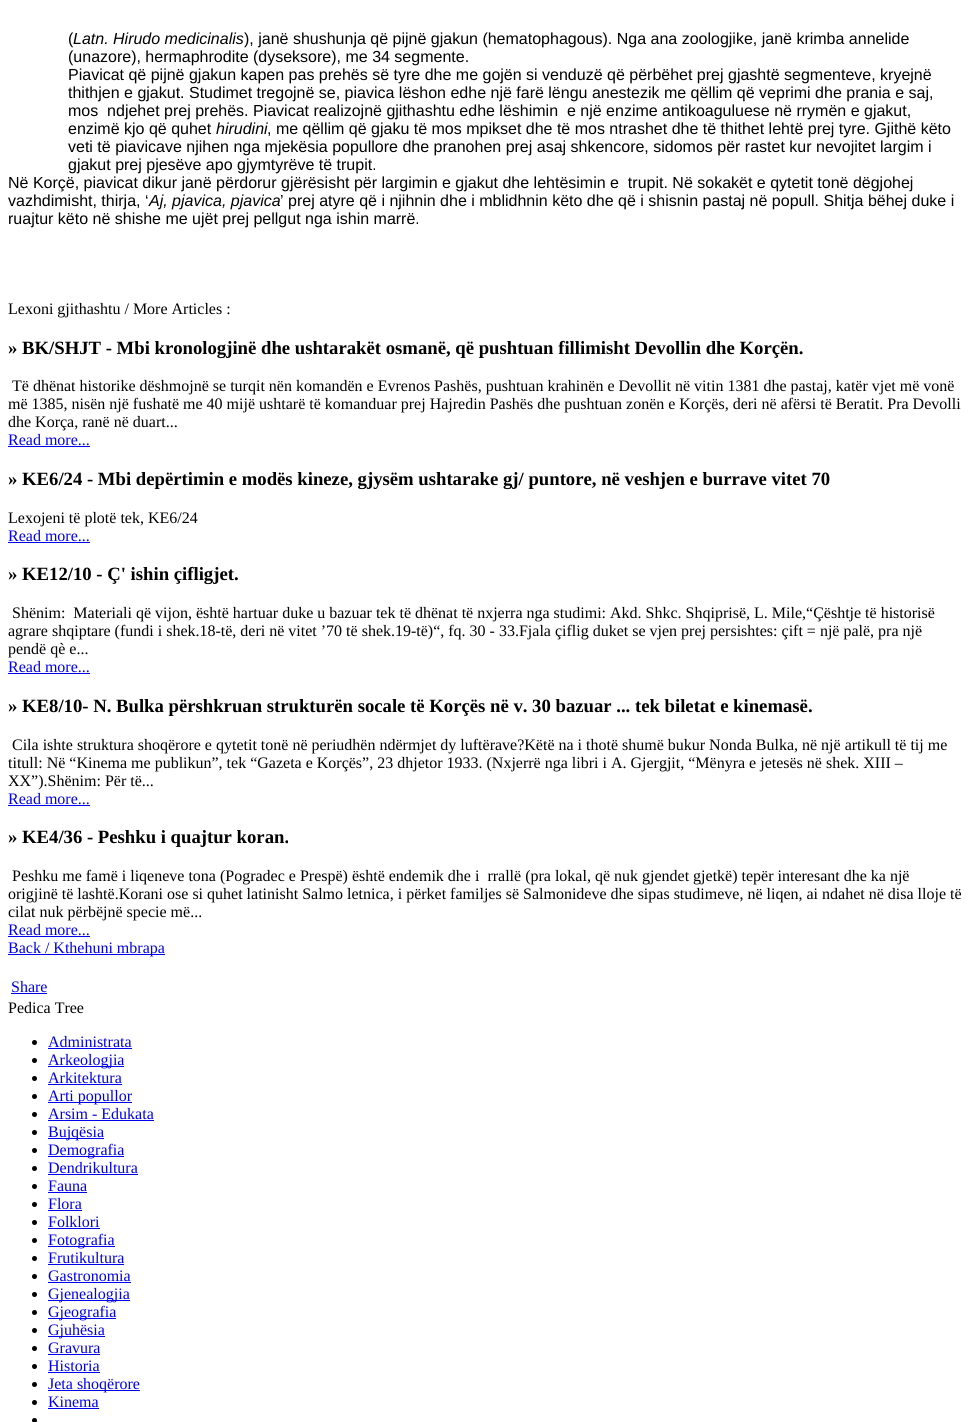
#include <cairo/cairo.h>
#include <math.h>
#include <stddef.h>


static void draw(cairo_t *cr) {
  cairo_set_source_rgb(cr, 1, 1, 1);
  cairo_paint(cr);
  cairo_set_source_rgb(cr, 0, 0, 238 / 255.0);
  cairo_rectangle(cr, 8, 446, 82, 1);
  cairo_fill(cr);
  cairo_rectangle(cr, 8, 542, 82, 1);
  cairo_fill(cr);
  cairo_rectangle(cr, 8, 673, 82, 1);
  cairo_fill(cr);
  cairo_rectangle(cr, 8, 805, 82, 1);
  cairo_fill(cr);
  cairo_rectangle(cr, 8, 936, 82, 1);
  cairo_fill(cr);
  cairo_rectangle(cr, 8, 954, 157, 1);
  cairo_fill(cr);
  cairo_rectangle(cr, 11, 993, 36, 1);
  cairo_fill(cr);
  cairo_set_source_rgb(cr, 0, 0, 0);
  cairo_arc(cr, 34.5, 1042.5, 2.5, 0, 2 * M_PI);
  cairo_fill(cr);
  cairo_set_source_rgb(cr, 0, 0, 238 / 255.0);
  cairo_rectangle(cr, 48, 1048, 84, 1);
  cairo_fill(cr);
  cairo_set_source_rgb(cr, 0, 0, 0);
  cairo_arc(cr, 34.5, 1060.5, 2.5, 0, 2 * M_PI);
  cairo_fill(cr);
  cairo_set_source_rgb(cr, 0, 0, 238 / 255.0);
  cairo_rectangle(cr, 48, 1066, 76, 1);
  cairo_fill(cr);
  cairo_set_source_rgb(cr, 0, 0, 0);
  cairo_arc(cr, 34.5, 1078.5, 2.5, 0, 2 * M_PI);
  cairo_fill(cr);
  cairo_set_source_rgb(cr, 0, 0, 238 / 255.0);
  cairo_rectangle(cr, 48, 1084, 74, 1);
  cairo_fill(cr);
  cairo_set_source_rgb(cr, 0, 0, 0);
  cairo_arc(cr, 34.5, 1096.5, 2.5, 0, 2 * M_PI);
  cairo_fill(cr);
  cairo_set_source_rgb(cr, 0, 0, 238 / 255.0);
  cairo_rectangle(cr, 48, 1102, 84, 1);
  cairo_fill(cr);
  cairo_set_source_rgb(cr, 0, 0, 0);
  cairo_arc(cr, 34.5, 1114.5, 2.5, 0, 2 * M_PI);
  cairo_fill(cr);
  cairo_set_source_rgb(cr, 0, 0, 238 / 255.0);
  cairo_rectangle(cr, 48, 1120, 106, 1);
  cairo_fill(cr);
  cairo_set_source_rgb(cr, 0, 0, 0);
  cairo_arc(cr, 34.5, 1132.5, 2.5, 0, 2 * M_PI);
  cairo_fill(cr);
  cairo_set_source_rgb(cr, 0, 0, 238 / 255.0);
  cairo_rectangle(cr, 48, 1138, 56, 1);
  cairo_fill(cr);
  cairo_set_source_rgb(cr, 0, 0, 0);
  cairo_arc(cr, 34.5, 1150.5, 2.5, 0, 2 * M_PI);
  cairo_fill(cr);
  cairo_set_source_rgb(cr, 0, 0, 238 / 255.0);
  cairo_rectangle(cr, 48, 1156, 76, 1);
  cairo_fill(cr);
  cairo_set_source_rgb(cr, 0, 0, 0);
  cairo_arc(cr, 34.5, 1168.5, 2.5, 0, 2 * M_PI);
  cairo_fill(cr);
  cairo_set_source_rgb(cr, 0, 0, 238 / 255.0);
  cairo_rectangle(cr, 48, 1174, 90, 1);
  cairo_fill(cr);
  cairo_set_source_rgb(cr, 0, 0, 0);
  cairo_arc(cr, 34.5, 1186.5, 2.5, 0, 2 * M_PI);
  cairo_fill(cr);
  cairo_set_source_rgb(cr, 0, 0, 238 / 255.0);
  cairo_rectangle(cr, 48, 1192, 39, 1);
  cairo_fill(cr);
  cairo_set_source_rgb(cr, 0, 0, 0);
  cairo_arc(cr, 34.5, 1204.5, 2.5, 0, 2 * M_PI);
  cairo_fill(cr);
  cairo_set_source_rgb(cr, 0, 0, 238 / 255.0);
  cairo_rectangle(cr, 48, 1210, 34, 1);
  cairo_fill(cr);
  cairo_set_source_rgb(cr, 0, 0, 0);
  cairo_arc(cr, 34.5, 1222.5, 2.5, 0, 2 * M_PI);
  cairo_fill(cr);
  cairo_set_source_rgb(cr, 0, 0, 238 / 255.0);
  cairo_rectangle(cr, 48, 1228, 52, 1);
  cairo_fill(cr);
  cairo_set_source_rgb(cr, 0, 0, 0);
  cairo_arc(cr, 34.5, 1240.5, 2.5, 0, 2 * M_PI);
  cairo_fill(cr);
  cairo_set_source_rgb(cr, 0, 0, 238 / 255.0);
  cairo_rectangle(cr, 48, 1246, 67, 1);
  cairo_fill(cr);
  cairo_set_source_rgb(cr, 0, 0, 0);
  cairo_arc(cr, 34.5, 1258.5, 2.5, 0, 2 * M_PI);
  cairo_fill(cr);
  cairo_set_source_rgb(cr, 0, 0, 238 / 255.0);
  cairo_rectangle(cr, 48, 1264, 76, 1);
  cairo_fill(cr);
  cairo_set_source_rgb(cr, 0, 0, 0);
  cairo_arc(cr, 34.5, 1276.5, 2.5, 0, 2 * M_PI);
  cairo_fill(cr);
  cairo_set_source_rgb(cr, 0, 0, 238 / 255.0);
  cairo_rectangle(cr, 48, 1282, 83, 1);
  cairo_fill(cr);
  cairo_set_source_rgb(cr, 0, 0, 0);
  cairo_arc(cr, 34.5, 1294.5, 2.5, 0, 2 * M_PI);
  cairo_fill(cr);
  cairo_set_source_rgb(cr, 0, 0, 238 / 255.0);
  cairo_rectangle(cr, 48, 1300, 82, 1);
  cairo_fill(cr);
  cairo_set_source_rgb(cr, 0, 0, 0);
  cairo_arc(cr, 34.5, 1312.5, 2.5, 0, 2 * M_PI);
  cairo_fill(cr);
  cairo_set_source_rgb(cr, 0, 0, 238 / 255.0);
  cairo_rectangle(cr, 48, 1318, 68, 1);
  cairo_fill(cr);
  cairo_set_source_rgb(cr, 0, 0, 0);
  cairo_arc(cr, 34.5, 1330.5, 2.5, 0, 2 * M_PI);
  cairo_fill(cr);
  cairo_set_source_rgb(cr, 0, 0, 238 / 255.0);
  cairo_rectangle(cr, 48, 1336, 57, 1);
  cairo_fill(cr);
  cairo_set_source_rgb(cr, 0, 0, 0);
  cairo_arc(cr, 34.5, 1348.5, 2.5, 0, 2 * M_PI);
  cairo_fill(cr);
  cairo_set_source_rgb(cr, 0, 0, 238 / 255.0);
  cairo_rectangle(cr, 48, 1354, 52, 1);
  cairo_fill(cr);
  cairo_set_source_rgb(cr, 0, 0, 0);
  cairo_arc(cr, 34.5, 1366.5, 2.5, 0, 2 * M_PI);
  cairo_fill(cr);
  cairo_set_source_rgb(cr, 0, 0, 238 / 255.0);
  cairo_rectangle(cr, 48, 1372, 52, 1);
  cairo_fill(cr);
  cairo_set_source_rgb(cr, 0, 0, 0);
  cairo_arc(cr, 34.5, 1384.5, 2.5, 0, 2 * M_PI);
  cairo_fill(cr);
  cairo_set_source_rgb(cr, 0, 0, 238 / 255.0);
  cairo_rectangle(cr, 48, 1390, 92, 1);
  cairo_fill(cr);
  cairo_set_source_rgb(cr, 0, 0, 0);
  cairo_arc(cr, 34.5, 1402.5, 2.5, 0, 2 * M_PI);
  cairo_fill(cr);
  cairo_set_source_rgb(cr, 0, 0, 238 / 255.0);
  cairo_rectangle(cr, 48, 1408, 51, 1);
  cairo_fill(cr);
  cairo_set_source_rgb(cr, 0, 0, 0);
  cairo_arc(cr, 34.5, 1420.5, 2.5, 0, 2 * M_PI);
  cairo_fill(cr);
  cairo_select_font_face(cr, "Liberation Sans", CAIRO_FONT_SLANT_NORMAL, CAIRO_FONT_WEIGHT_NORMAL);
  cairo_set_font_size(cr, 16);
  cairo_move_to(cr, 68, 44);
  cairo_show_text(cr, "(");
  cairo_select_font_face(cr, "Liberation Sans", CAIRO_FONT_SLANT_ITALIC, CAIRO_FONT_WEIGHT_NORMAL);
  cairo_move_to(cr, 73, 44);
  cairo_show_text(cr, "Latn. Hirudo medicinalis");
  cairo_select_font_face(cr, "Liberation Sans", CAIRO_FONT_SLANT_NORMAL, CAIRO_FONT_WEIGHT_NORMAL);
  cairo_move_to(cr, 244, 44);
  cairo_show_text(cr, "), janë shushunja që pijnë gjakun (hematophagous). Nga ana zoologjike, janë krimba annelide");
  cairo_move_to(cr, 68, 62);
  cairo_show_text(cr, "(unazore), hermaphrodite (dyseksore), me 34 segmente.");
  cairo_move_to(cr, 68, 80);
  cairo_show_text(cr, "Piavicat që pijnë gjakun kapen pas prehës së tyre dhe me gojën si venduzë që përbëhet prej gjashtë segmenteve, kryejnë");
  cairo_move_to(cr, 68, 98);
  cairo_show_text(cr, "thithjen e gjakut. Studimet tregojnë se, piavica lëshon edhe një farë lëngu anestezik me qëllim që veprimi dhe prania e saj,");
  cairo_move_to(cr, 68, 116);
  cairo_show_text(cr, "mos  ndjehet prej prehës. Piavicat realizojnë gjithashtu edhe lëshimin  e një enzime antikoaguluese në rrymën e gjakut,");
  cairo_move_to(cr, 68, 134);
  cairo_show_text(cr, "enzimë kjo që quhet");
  cairo_select_font_face(cr, "Liberation Sans", CAIRO_FONT_SLANT_ITALIC, CAIRO_FONT_WEIGHT_NORMAL);
  cairo_move_to(cr, 216, 134);
  cairo_show_text(cr, "hirudini");
  cairo_select_font_face(cr, "Liberation Sans", CAIRO_FONT_SLANT_NORMAL, CAIRO_FONT_WEIGHT_NORMAL);
  cairo_move_to(cr, 267, 134);
  cairo_show_text(cr, ", me qëllim që gjaku të mos mpikset dhe të mos ntrashet dhe të thithet lehtë prej tyre. Gjithë këto");
  cairo_move_to(cr, 68, 152);
  cairo_show_text(cr, "veti të piavicave njihen nga mjekësia popullore dhe pranohen prej asaj shkencore, sidomos për rastet kur nevojitet largim i");
  cairo_move_to(cr, 68, 170);
  cairo_show_text(cr, "gjakut prej pjesëve apo gjymtyrëve të trupit.");
  cairo_move_to(cr, 8, 188);
  cairo_show_text(cr, "Në Korçë, piavicat dikur janë përdorur gjërësisht për largimin e gjakut dhe lehtësimin e  trupit. Në sokakët e qytetit tonë dëgjohej");
  cairo_move_to(cr, 8, 206);
  cairo_show_text(cr, "vazhdimisht, thirja, ‘");
  cairo_select_font_face(cr, "Liberation Sans", CAIRO_FONT_SLANT_ITALIC, CAIRO_FONT_WEIGHT_NORMAL);
  cairo_move_to(cr, 149, 206);
  cairo_show_text(cr, "Aj, pjavica, pjavica");
  cairo_select_font_face(cr, "Liberation Sans", CAIRO_FONT_SLANT_NORMAL, CAIRO_FONT_WEIGHT_NORMAL);
  cairo_move_to(cr, 280, 206);
  cairo_show_text(cr, "’ prej atyre që i njihnin dhe i mblidhnin këto dhe që i shisnin pastaj në popull. Shitja bëhej duke i");
  cairo_move_to(cr, 8, 224);
  cairo_show_text(cr, "ruajtur këto në shishe me ujët prej pellgut nga ishin marrë.");
  cairo_select_font_face(cr, "Liberation Serif", CAIRO_FONT_SLANT_NORMAL, CAIRO_FONT_WEIGHT_NORMAL);
  cairo_move_to(cr, 8, 314);
  cairo_show_text(cr, "Lexoni gjithashtu / More Articles :");
  cairo_select_font_face(cr, "Liberation Serif", CAIRO_FONT_SLANT_NORMAL, CAIRO_FONT_WEIGHT_BOLD);
  cairo_set_font_size(cr, 18.7);
  cairo_move_to(cr, 8, 354);
  cairo_show_text(cr, "» BK/SHJT - Mbi kronologjinë dhe ushtarakët osmanë, që pushtuan fillimisht Devollin dhe Korçën.");
  cairo_select_font_face(cr, "Liberation Serif", CAIRO_FONT_SLANT_NORMAL, CAIRO_FONT_WEIGHT_NORMAL);
  cairo_set_font_size(cr, 16);
  cairo_move_to(cr, 12, 391);
  cairo_show_text(cr, "Të dhënat historike dëshmojnë se turqit nën komandën e Evrenos Pashës, pushtuan krahinën e Devollit në vitin 1381 dhe pastaj, katër vjet më vonë");
  cairo_move_to(cr, 8, 409);
  cairo_show_text(cr, "më 1385, nisën një fushatë me 40 mijë ushtarë të komanduar prej Hajredin Pashës dhe pushtuan zonën e Korçës, deri në afërsi të Beratit. Pra Devolli");
  cairo_move_to(cr, 8, 427);
  cairo_show_text(cr, "dhe Korça, ranë në duart...");
  cairo_set_source_rgb(cr, 0, 0, 238 / 255.0);
  cairo_move_to(cr, 8, 445);
  cairo_show_text(cr, "Read more...");
  cairo_select_font_face(cr, "Liberation Serif", CAIRO_FONT_SLANT_NORMAL, CAIRO_FONT_WEIGHT_BOLD);
  cairo_set_font_size(cr, 18.7);
  cairo_set_source_rgb(cr, 0, 0, 0);
  cairo_move_to(cr, 8, 485);
  cairo_show_text(cr, "» KE6/24 - Mbi depërtimin e modës kineze, gjysëm ushtarake gj/ puntore, në veshjen e burrave vitet 70");
  cairo_select_font_face(cr, "Liberation Serif", CAIRO_FONT_SLANT_NORMAL, CAIRO_FONT_WEIGHT_NORMAL);
  cairo_set_font_size(cr, 16);
  cairo_move_to(cr, 8, 523);
  cairo_show_text(cr, "Lexojeni të plotë tek, KE6/24");
  cairo_set_source_rgb(cr, 0, 0, 238 / 255.0);
  cairo_move_to(cr, 8, 541);
  cairo_show_text(cr, "Read more...");
  cairo_select_font_face(cr, "Liberation Serif", CAIRO_FONT_SLANT_NORMAL, CAIRO_FONT_WEIGHT_BOLD);
  cairo_set_font_size(cr, 18.7);
  cairo_set_source_rgb(cr, 0, 0, 0);
  cairo_move_to(cr, 8, 580);
  cairo_show_text(cr, "» KE12/10 - Ç' ishin çifligjet.");
  cairo_select_font_face(cr, "Liberation Serif", CAIRO_FONT_SLANT_NORMAL, CAIRO_FONT_WEIGHT_NORMAL);
  cairo_set_font_size(cr, 16);
  cairo_move_to(cr, 12, 618);
  cairo_show_text(cr, "Shënim:  Materiali që vijon, është hartuar duke u bazuar tek të dhënat të nxjerra nga studimi: Akd. Shkc. Shqiprisë, L. Mile,“Çështje të historisë");
  cairo_move_to(cr, 8, 636);
  cairo_show_text(cr, "agrare shqiptare (fundi i shek.18-të, deri në vitet ’70 të shek.19-të)“, fq. 30 - 33.Fjala çiflig duket se vjen prej persishtes: çift = një palë, pra një");
  cairo_move_to(cr, 8, 654);
  cairo_show_text(cr, "pendë qè e...");
  cairo_set_source_rgb(cr, 0, 0, 238 / 255.0);
  cairo_move_to(cr, 8, 672);
  cairo_show_text(cr, "Read more...");
  cairo_select_font_face(cr, "Liberation Serif", CAIRO_FONT_SLANT_NORMAL, CAIRO_FONT_WEIGHT_BOLD);
  cairo_set_font_size(cr, 18.7);
  cairo_set_source_rgb(cr, 0, 0, 0);
  cairo_move_to(cr, 8, 712);
  cairo_show_text(cr, "» KE8/10- N. Bulka përshkruan strukturën socale të Korçës në v. 30 bazuar ... tek biletat e kinemasë.");
  cairo_select_font_face(cr, "Liberation Serif", CAIRO_FONT_SLANT_NORMAL, CAIRO_FONT_WEIGHT_NORMAL);
  cairo_set_font_size(cr, 16);
  cairo_move_to(cr, 12, 750);
  cairo_show_text(cr, "Cila ishte struktura shoqërore e qytetit tonë në periudhën ndërmjet dy luftërave?Këtë na i thotë shumë bukur Nonda Bulka, në një artikull të tij me");
  cairo_move_to(cr, 8, 768);
  cairo_show_text(cr, "titull: Në “Kinema me publikun”, tek “Gazeta e Korçës”, 23 dhjetor 1933. (Nxjerrë nga libri i A. Gjergjit, “Mënyra e jetesës në shek. XIII –");
  cairo_move_to(cr, 8, 786);
  cairo_show_text(cr, "XX”).Shënim: Për të...");
  cairo_set_source_rgb(cr, 0, 0, 238 / 255.0);
  cairo_move_to(cr, 8, 804);
  cairo_show_text(cr, "Read more...");
  cairo_select_font_face(cr, "Liberation Serif", CAIRO_FONT_SLANT_NORMAL, CAIRO_FONT_WEIGHT_BOLD);
  cairo_set_font_size(cr, 18.7);
  cairo_set_source_rgb(cr, 0, 0, 0);
  cairo_move_to(cr, 8, 843);
  cairo_show_text(cr, "» KE4/36 - Peshku i quajtur koran.");
  cairo_select_font_face(cr, "Liberation Serif", CAIRO_FONT_SLANT_NORMAL, CAIRO_FONT_WEIGHT_NORMAL);
  cairo_set_font_size(cr, 16);
  cairo_move_to(cr, 12, 881);
  cairo_show_text(cr, "Peshku me famë i liqeneve tona (Pogradec e Prespë) është endemik dhe i  rrallë (pra lokal, që nuk gjendet gjetkë) tepër interesant dhe ka një");
  cairo_move_to(cr, 8, 899);
  cairo_show_text(cr, "origjinë të lashtë.Korani ose si quhet latinisht Salmo letnica, i përket familjes së Salmonideve dhe sipas studimeve, në liqen, ai ndahet në disa lloje të");
  cairo_move_to(cr, 8, 917);
  cairo_show_text(cr, "cilat nuk përbëjnë specie më...");
  cairo_set_source_rgb(cr, 0, 0, 238 / 255.0);
  cairo_move_to(cr, 8, 935);
  cairo_show_text(cr, "Read more...");
  cairo_move_to(cr, 8, 953);
  cairo_show_text(cr, "Back / Kthehuni mbrapa");
  cairo_move_to(cr, 11, 992);
  cairo_show_text(cr, "Share");
  cairo_set_source_rgb(cr, 0, 0, 0);
  cairo_move_to(cr, 8, 1013);
  cairo_show_text(cr, "Pedica Tree");
  cairo_set_source_rgb(cr, 0, 0, 238 / 255.0);
  cairo_move_to(cr, 48, 1047);
  cairo_show_text(cr, "Administrata");
  cairo_move_to(cr, 48, 1065);
  cairo_show_text(cr, "Arkeologjia");
  cairo_move_to(cr, 48, 1083);
  cairo_show_text(cr, "Arkitektura");
  cairo_move_to(cr, 48, 1101);
  cairo_show_text(cr, "Arti popullor");
  cairo_move_to(cr, 48, 1119);
  cairo_show_text(cr, "Arsim - Edukata");
  cairo_move_to(cr, 48, 1137);
  cairo_show_text(cr, "Bujqësia");
  cairo_move_to(cr, 48, 1155);
  cairo_show_text(cr, "Demografia");
  cairo_move_to(cr, 48, 1173);
  cairo_show_text(cr, "Dendrikultura");
  cairo_move_to(cr, 48, 1191);
  cairo_show_text(cr, "Fauna");
  cairo_move_to(cr, 48, 1209);
  cairo_show_text(cr, "Flora");
  cairo_move_to(cr, 48, 1227);
  cairo_show_text(cr, "Folklori");
  cairo_move_to(cr, 48, 1245);
  cairo_show_text(cr, "Fotografia");
  cairo_move_to(cr, 48, 1263);
  cairo_show_text(cr, "Frutikultura");
  cairo_move_to(cr, 48, 1281);
  cairo_show_text(cr, "Gastronomia");
  cairo_move_to(cr, 48, 1299);
  cairo_show_text(cr, "Gjenealogjia");
  cairo_move_to(cr, 48, 1317);
  cairo_show_text(cr, "Gjeografia");
  cairo_move_to(cr, 48, 1335);
  cairo_show_text(cr, "Gjuhësia");
  cairo_move_to(cr, 48, 1353);
  cairo_show_text(cr, "Gravura");
  cairo_move_to(cr, 48, 1371);
  cairo_show_text(cr, "Historia");
  cairo_move_to(cr, 48, 1389);
  cairo_show_text(cr, "Jeta shoqërore");
  cairo_move_to(cr, 48, 1407);
  cairo_show_text(cr, "Kinema");
}

int main(void) {
  cairo_surface_t *surface = cairo_image_surface_create(CAIRO_FORMAT_RGB24, 971, 1422);
  cairo_t *cr = cairo_create(surface);
  cairo_font_options_t *options = cairo_font_options_create();
  cairo_font_options_set_hint_metrics(options, CAIRO_HINT_METRICS_OFF);
  cairo_font_options_set_hint_style(options, CAIRO_HINT_STYLE_NONE);
  cairo_set_font_options(cr, options);
  cairo_set_miter_limit(cr, 4);
  draw(cr);
  cairo_surface_write_to_png(surface, "out.png");
  cairo_font_options_destroy(options);
  cairo_destroy(cr);
  cairo_surface_destroy(surface);
  return 0;
}
